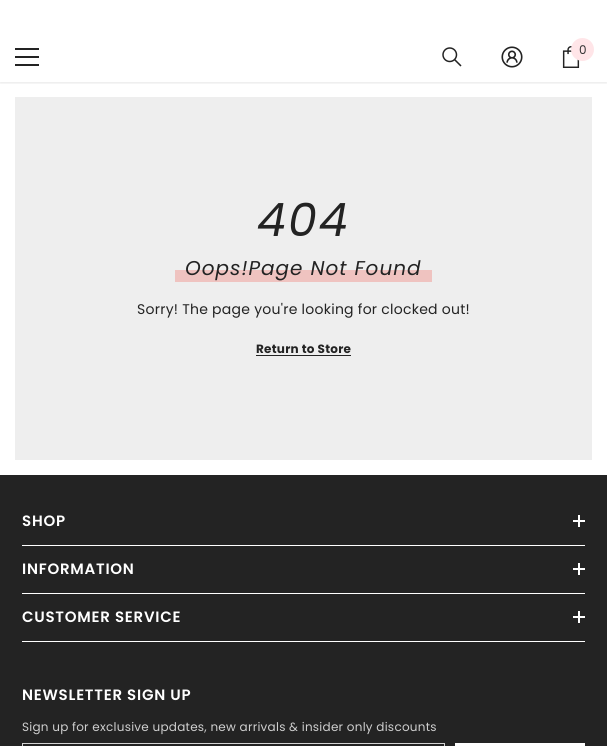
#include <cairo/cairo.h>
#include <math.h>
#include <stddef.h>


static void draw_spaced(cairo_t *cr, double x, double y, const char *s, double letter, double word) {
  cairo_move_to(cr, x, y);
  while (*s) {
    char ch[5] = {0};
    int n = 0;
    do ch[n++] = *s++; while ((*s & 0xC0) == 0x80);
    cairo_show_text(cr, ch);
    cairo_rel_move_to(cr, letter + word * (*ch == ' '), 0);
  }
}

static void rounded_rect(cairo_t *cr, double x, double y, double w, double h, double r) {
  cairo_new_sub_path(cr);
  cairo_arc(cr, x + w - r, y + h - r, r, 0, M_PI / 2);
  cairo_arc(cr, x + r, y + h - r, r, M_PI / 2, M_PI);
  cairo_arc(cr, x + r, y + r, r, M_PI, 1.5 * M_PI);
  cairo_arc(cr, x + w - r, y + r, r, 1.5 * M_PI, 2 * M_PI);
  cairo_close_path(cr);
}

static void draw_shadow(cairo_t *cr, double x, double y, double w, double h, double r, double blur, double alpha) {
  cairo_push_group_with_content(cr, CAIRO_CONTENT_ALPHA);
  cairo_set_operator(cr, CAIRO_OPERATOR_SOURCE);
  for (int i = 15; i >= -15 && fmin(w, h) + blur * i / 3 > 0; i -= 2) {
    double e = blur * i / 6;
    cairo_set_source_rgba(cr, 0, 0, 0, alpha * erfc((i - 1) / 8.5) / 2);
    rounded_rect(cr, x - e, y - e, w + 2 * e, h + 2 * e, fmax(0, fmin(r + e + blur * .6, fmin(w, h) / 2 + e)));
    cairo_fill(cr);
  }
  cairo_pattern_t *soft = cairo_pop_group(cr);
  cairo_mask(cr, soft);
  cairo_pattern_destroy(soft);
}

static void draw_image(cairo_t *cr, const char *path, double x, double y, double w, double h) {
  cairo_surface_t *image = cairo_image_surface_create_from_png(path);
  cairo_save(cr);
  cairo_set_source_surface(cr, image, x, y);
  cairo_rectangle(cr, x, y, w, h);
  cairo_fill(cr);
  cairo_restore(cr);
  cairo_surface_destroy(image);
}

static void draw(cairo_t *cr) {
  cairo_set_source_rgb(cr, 1, 1, 1);
  cairo_paint(cr);
  cairo_save(cr);
  cairo_rectangle(cr, 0, 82, 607, 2);
  cairo_clip(cr);
  cairo_set_source_rgb(cr, 0, 0, 0);
  draw_shadow(cr, 0, 33, 607, 50, 0, 1.5, 0.1);
  cairo_restore(cr);
  cairo_set_source_rgb(cr, 35 / 255.0, 35 / 255.0, 35 / 255.0);
  cairo_rectangle(cr, 15, 56, 24, 2);
  cairo_fill(cr);
  cairo_rectangle(cr, 15, 48, 24, 2);
  cairo_fill(cr);
  cairo_rectangle(cr, 15, 64, 24, 2);
  cairo_fill(cr);
  draw_image(cr, "images/1.png", 442, 47, 20, 20);
  draw_image(cr, "images/2.png", 501, 46, 22, 22);
  draw_image(cr, "images/3.png", 562, 46, 18, 22);
  cairo_set_source_rgb(cr, 1, 229 / 255.0, 232 / 255.0);
  cairo_arc(cr, 582.5, 49.5, 11.5, 0, 2 * M_PI);
  cairo_fill(cr);
  cairo_set_source_rgb(cr, 238 / 255.0, 238 / 255.0, 238 / 255.0);
  cairo_rectangle(cr, 15, 97, 577, 363);
  cairo_fill(cr);
  cairo_set_source_rgb(cr, 239 / 255.0, 195 / 255.0, 192 / 255.0);
  cairo_rectangle(cr, 175, 270, 257, 12);
  cairo_fill(cr);
  cairo_set_source_rgb(cr, 35 / 255.0, 35 / 255.0, 35 / 255.0);
  cairo_rectangle(cr, 256, 355, 95, 1);
  cairo_fill(cr);
  cairo_rectangle(cr, 0, 475, 607, 271);
  cairo_fill(cr);
  cairo_set_source_rgb(cr, 1, 1, 1);
  cairo_rectangle(cr, 22, 545, 563, 1);
  cairo_fill(cr);
  cairo_rectangle(cr, 578, 515, 2, 12);
  cairo_fill(cr);
  cairo_rectangle(cr, 573, 520, 12, 2);
  cairo_fill(cr);
  cairo_rectangle(cr, 22, 593, 563, 1);
  cairo_fill(cr);
  cairo_rectangle(cr, 578, 563, 2, 12);
  cairo_fill(cr);
  cairo_rectangle(cr, 573, 568, 12, 2);
  cairo_fill(cr);
  cairo_rectangle(cr, 22, 641, 563, 1);
  cairo_fill(cr);
  cairo_rectangle(cr, 578, 611, 2, 12);
  cairo_fill(cr);
  cairo_rectangle(cr, 573, 616, 12, 2);
  cairo_fill(cr);
  cairo_rectangle(cr, 22.5, 743.5, 422, 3);
  cairo_set_source_rgb(cr, 211 / 255.0, 211 / 255.0, 211 / 255.0);
  cairo_set_line_width(cr, 1);
  cairo_stroke(cr);
  cairo_set_source_rgb(cr, 1, 1, 1);
  cairo_rectangle(cr, 455, 743, 130, 3);
  cairo_fill(cr);
  cairo_select_font_face(cr, "Poppins", CAIRO_FONT_SLANT_NORMAL, CAIRO_FONT_WEIGHT_NORMAL);
  cairo_set_font_size(cr, 12);
  cairo_set_source_rgb(cr, 50 / 255.0, 50 / 255.0, 50 / 255.0);
  draw_spaced(cr, 579, 54, "0", 0.25, 0);
  cairo_select_font_face(cr, "Poppins", CAIRO_FONT_SLANT_ITALIC, CAIRO_FONT_WEIGHT_NORMAL);
  cairo_set_font_size(cr, 46);
  cairo_set_source_rgb(cr, 35 / 255.0, 35 / 255.0, 35 / 255.0);
  draw_spaced(cr, 257, 236, "404", 2, 0);
  cairo_set_font_size(cr, 20);
  draw_spaced(cr, 185, 275, "Oops!Page Not Found", 1, 0);
  cairo_select_font_face(cr, "Poppins", CAIRO_FONT_SLANT_NORMAL, CAIRO_FONT_WEIGHT_NORMAL);
  cairo_set_font_size(cr, 14);
  draw_spaced(cr, 137, 314, "Sorry! The page you're looking for clocked out!", 0.25, 0);
  cairo_select_font_face(cr, "Poppins", CAIRO_FONT_SLANT_NORMAL, CAIRO_FONT_WEIGHT_BOLD);
  cairo_set_font_size(cr, 12);
  draw_spaced(cr, 256, 353, "Return to Store", 0.25, 0);
  cairo_select_font_face(cr, "Poppins SemiBold", CAIRO_FONT_SLANT_NORMAL, CAIRO_FONT_WEIGHT_NORMAL);
  cairo_set_font_size(cr, 15);
  cairo_set_source_rgb(cr, 1, 1, 1);
  draw_spaced(cr, 22, 526, "SHOP", 0.75, 0);
  draw_spaced(cr, 22, 574, "INFORMATION", 0.75, 0);
  draw_spaced(cr, 22, 622, "CUSTOMER SERVICE", 0.75, 0);
  draw_spaced(cr, 22, 700, "NEWSLETTER SIGN UP", 0.75, 0);
  cairo_select_font_face(cr, "Poppins", CAIRO_FONT_SLANT_NORMAL, CAIRO_FONT_WEIGHT_NORMAL);
  cairo_set_font_size(cr, 12);
  cairo_set_source_rgb(cr, 207 / 255.0, 207 / 255.0, 207 / 255.0);
  draw_spaced(cr, 22, 731, "Sign up for exclusive updates, new arrivals & insider only discounts", 0.25, 0);
}

int main(void) {
  cairo_surface_t *surface = cairo_image_surface_create(CAIRO_FORMAT_RGB24, 607, 746);
  cairo_t *cr = cairo_create(surface);
  cairo_font_options_t *options = cairo_font_options_create();
  cairo_font_options_set_hint_metrics(options, CAIRO_HINT_METRICS_OFF);
  cairo_font_options_set_hint_style(options, CAIRO_HINT_STYLE_NONE);
  cairo_set_font_options(cr, options);
  cairo_set_miter_limit(cr, 4);
  draw(cr);
  cairo_surface_write_to_png(surface, "out.png");
  cairo_font_options_destroy(options);
  cairo_destroy(cr);
  cairo_surface_destroy(surface);
  return 0;
}
